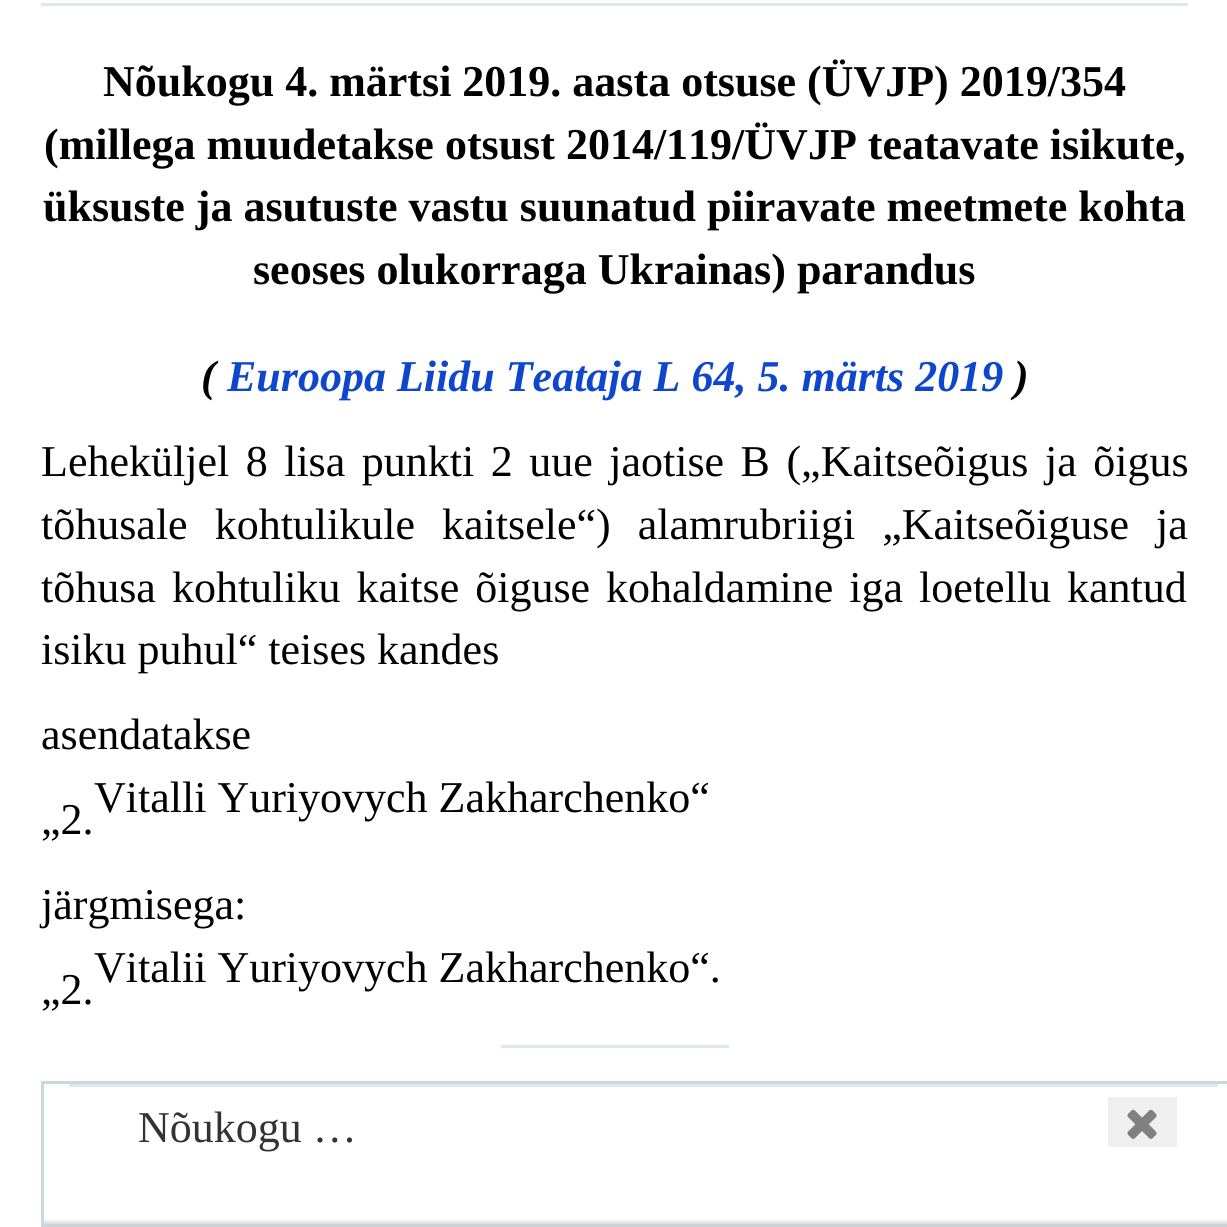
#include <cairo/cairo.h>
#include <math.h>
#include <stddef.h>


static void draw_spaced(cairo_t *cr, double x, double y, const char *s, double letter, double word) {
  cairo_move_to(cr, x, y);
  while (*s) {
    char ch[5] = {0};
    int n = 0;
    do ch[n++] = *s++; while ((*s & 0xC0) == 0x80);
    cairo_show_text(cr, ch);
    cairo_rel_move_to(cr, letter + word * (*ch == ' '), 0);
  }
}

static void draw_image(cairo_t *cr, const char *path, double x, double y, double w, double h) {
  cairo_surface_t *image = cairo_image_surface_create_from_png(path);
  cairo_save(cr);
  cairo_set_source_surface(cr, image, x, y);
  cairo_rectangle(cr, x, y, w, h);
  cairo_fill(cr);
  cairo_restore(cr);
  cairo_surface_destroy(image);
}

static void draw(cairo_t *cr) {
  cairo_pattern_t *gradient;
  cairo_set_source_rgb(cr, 1, 1, 1);
  cairo_paint(cr);
  cairo_set_source_rgb(cr, 222 / 255.0, 232 / 255.0, 236 / 255.0);
  cairo_rectangle(cr, 41, 3, 1147, 3);
  cairo_fill(cr);
  cairo_rectangle(cr, 501, 1045, 228, 3);
  cairo_fill(cr);
  gradient = cairo_pattern_create_linear(645, 1227, 645, 1219);
  cairo_pattern_add_color_stop_rgba(gradient, 0, 195 / 255.0, 195 / 255.0, 197 / 255.0, 1);
  cairo_pattern_add_color_stop_rgba(gradient, 1, 1, 1, 1, 1);
  cairo_set_source(cr, gradient);
  cairo_pattern_destroy(gradient);
  cairo_rectangle(cr, 44, 1219, 1183, 7);
  cairo_fill(cr);
  cairo_rectangle(cr, 42.5, 1082.5, 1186, 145);
  cairo_set_source_rgb(cr, 202 / 255.0, 215 / 255.0, 220 / 255.0);
  cairo_set_line_width(cr, 3);
  cairo_stroke(cr);
  cairo_set_source_rgb(cr, 222 / 255.0, 232 / 255.0, 236 / 255.0);
  cairo_rectangle(cr, 69, 1084, 1149, 3);
  cairo_fill(cr);
  cairo_set_source_rgb(cr, 239 / 255.0, 239 / 255.0, 239 / 255.0);
  cairo_rectangle(cr, 1108, 1097, 69, 50);
  cairo_fill(cr);
  draw_image(cr, "images/1.png", 1127, 1109, 30, 30);
  cairo_select_font_face(cr, "Liberation Serif", CAIRO_FONT_SLANT_NORMAL, CAIRO_FONT_WEIGHT_BOLD);
  cairo_set_font_size(cr, 44);
  cairo_set_source_rgb(cr, 0, 0, 0);
  cairo_move_to(cr, 103, 96);
  cairo_show_text(cr, "Nõukogu 4. märtsi 2019. aasta otsuse (ÜVJP) 2019/354");
  cairo_move_to(cr, 44, 159);
  cairo_show_text(cr, "(millega muudetakse otsust 2014/119/ÜVJP teatavate isikute,");
  cairo_move_to(cr, 43, 221);
  cairo_show_text(cr, "üksuste ja asutuste vastu suunatud piiravate meetmete kohta");
  cairo_move_to(cr, 253, 284);
  cairo_show_text(cr, "seoses olukorraga Ukrainas) parandus");
  cairo_select_font_face(cr, "Liberation Serif", CAIRO_FONT_SLANT_ITALIC, CAIRO_FONT_WEIGHT_BOLD);
  cairo_move_to(cr, 201, 391);
  cairo_show_text(cr, "(");
  cairo_set_source_rgb(cr, 14 / 255.0, 71 / 255.0, 203 / 255.0);
  cairo_move_to(cr, 227, 391);
  cairo_show_text(cr, "Euroopa Liidu Teataja L 64, 5. märts 2019");
  cairo_set_source_rgb(cr, 0, 0, 0);
  cairo_move_to(cr, 1014, 391);
  cairo_show_text(cr, ")");
  cairo_select_font_face(cr, "Liberation Serif", CAIRO_FONT_SLANT_NORMAL, CAIRO_FONT_WEIGHT_NORMAL);
  draw_spaced(cr, 41, 476, "Leheküljel 8 lisa punkti 2 uue jaotise B („Kaitseõigus ja õigus", 0, 5.5);
  draw_spaced(cr, 41, 539, "tõhusale kohtulikule kaitsele“) alamrubriigi „Kaitseõiguse ja", 0, 16);
  draw_spaced(cr, 41, 602, "tõhusa kohtuliku kaitse õiguse kohaldamine iga loetellu kantud", 0, 5);
  cairo_move_to(cr, 41, 664);
  cairo_show_text(cr, "isiku puhul“ teises kandes");
  cairo_move_to(cr, 41, 749);
  cairo_show_text(cr, "asendatakse");
  cairo_move_to(cr, 41, 834);
  cairo_show_text(cr, "„2.");
  cairo_move_to(cr, 94, 812);
  cairo_show_text(cr, "Vitalli Yuriyovych Zakharchenko“");
  cairo_move_to(cr, 41, 919);
  cairo_show_text(cr, "järgmisega:");
  cairo_move_to(cr, 41, 1004);
  cairo_show_text(cr, "„2.");
  cairo_move_to(cr, 94, 982);
  cairo_show_text(cr, "Vitalii Yuriyovych Zakharchenko“.");
  cairo_set_source_rgb(cr, 51 / 255.0, 51 / 255.0, 51 / 255.0);
  cairo_move_to(cr, 138, 1142);
  cairo_show_text(cr, "Nõukogu …");
}

int main(void) {
  cairo_surface_t *surface = cairo_image_surface_create(CAIRO_FORMAT_RGB24, 1227, 1227);
  cairo_t *cr = cairo_create(surface);
  cairo_font_options_t *options = cairo_font_options_create();
  cairo_font_options_set_hint_metrics(options, CAIRO_HINT_METRICS_OFF);
  cairo_font_options_set_hint_style(options, CAIRO_HINT_STYLE_NONE);
  cairo_set_font_options(cr, options);
  cairo_set_miter_limit(cr, 4);
  draw(cr);
  cairo_surface_write_to_png(surface, "out.png");
  cairo_font_options_destroy(options);
  cairo_destroy(cr);
  cairo_surface_destroy(surface);
  return 0;
}
